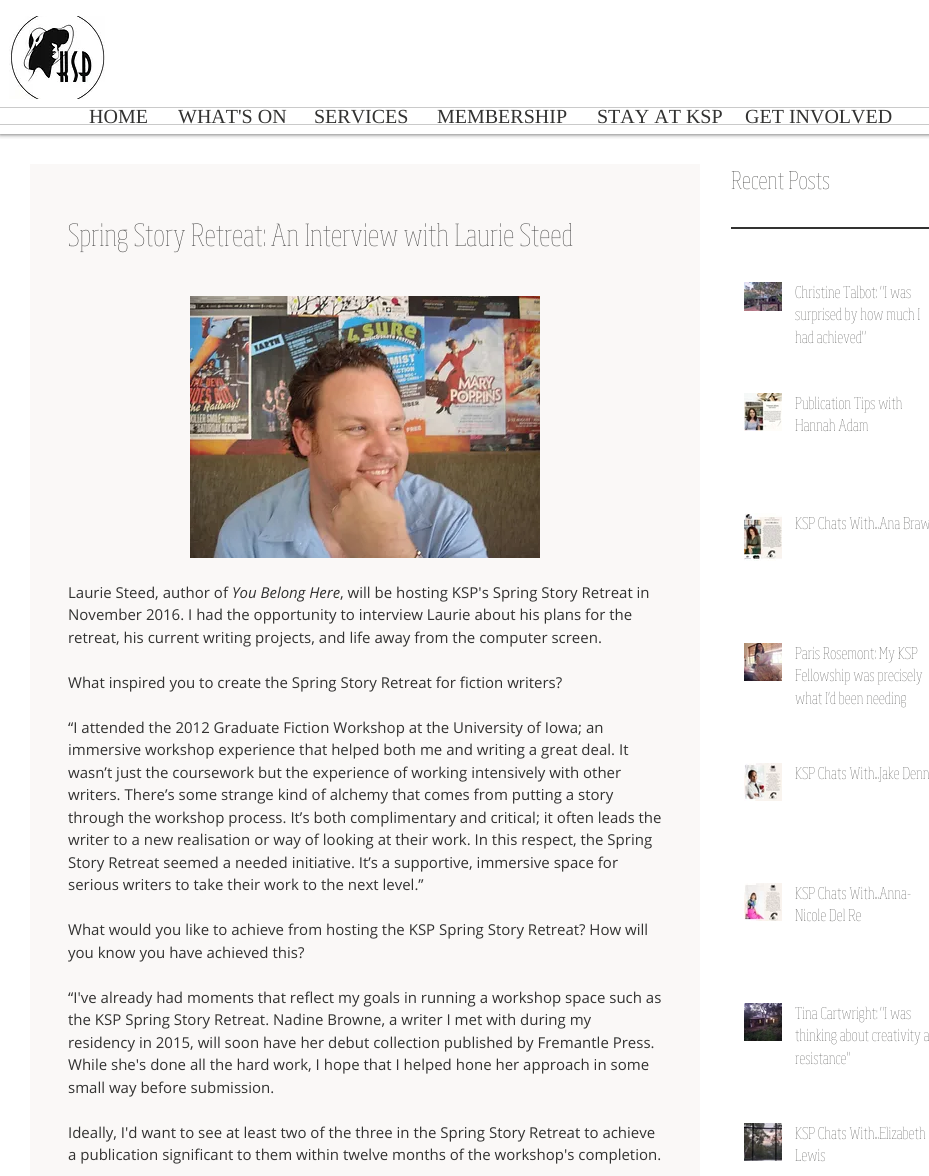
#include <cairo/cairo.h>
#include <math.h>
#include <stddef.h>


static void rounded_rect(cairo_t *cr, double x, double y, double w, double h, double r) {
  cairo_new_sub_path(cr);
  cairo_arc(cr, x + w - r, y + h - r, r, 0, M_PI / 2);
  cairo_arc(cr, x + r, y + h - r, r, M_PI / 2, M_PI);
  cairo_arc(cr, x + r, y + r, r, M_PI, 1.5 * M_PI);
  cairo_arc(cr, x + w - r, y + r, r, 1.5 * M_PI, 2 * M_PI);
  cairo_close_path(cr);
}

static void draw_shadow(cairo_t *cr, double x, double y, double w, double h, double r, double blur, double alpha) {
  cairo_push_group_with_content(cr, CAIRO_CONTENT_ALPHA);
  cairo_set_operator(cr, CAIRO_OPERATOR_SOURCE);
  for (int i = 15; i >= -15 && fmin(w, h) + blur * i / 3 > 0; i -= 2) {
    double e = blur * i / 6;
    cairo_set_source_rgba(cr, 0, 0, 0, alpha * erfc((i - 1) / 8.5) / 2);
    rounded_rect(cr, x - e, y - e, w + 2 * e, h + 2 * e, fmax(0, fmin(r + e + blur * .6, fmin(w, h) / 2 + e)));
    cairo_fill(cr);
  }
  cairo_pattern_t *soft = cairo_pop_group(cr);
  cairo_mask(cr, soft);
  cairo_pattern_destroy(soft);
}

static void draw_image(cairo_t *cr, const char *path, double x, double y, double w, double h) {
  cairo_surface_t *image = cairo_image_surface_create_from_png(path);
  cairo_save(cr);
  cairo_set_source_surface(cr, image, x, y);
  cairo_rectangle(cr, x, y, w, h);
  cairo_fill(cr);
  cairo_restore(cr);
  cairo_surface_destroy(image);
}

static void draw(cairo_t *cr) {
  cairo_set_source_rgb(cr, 1, 1, 1);
  cairo_paint(cr);
  cairo_save(cr);
  cairo_rectangle(cr, 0, 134, 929, 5);
  cairo_clip(cr);
  cairo_set_source_rgb(cr, 0, 0, 0);
  draw_shadow(cr, 0, 0, 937, 134, 0, 2.5, 0.7);
  cairo_restore(cr);
  draw_image(cr, "images/1.png", 9, 16, 96, 83);
  cairo_set_source_rgb(cr, 202 / 255.0, 202 / 255.0, 202 / 255.0);
  cairo_rectangle(cr, 0, 107, 929, 1);
  cairo_fill(cr);
  cairo_rectangle(cr, 0, 124, 929, 1);
  cairo_fill(cr);
  draw_image(cr, "images/2.png", 731, 171, 99, 19);
  cairo_set_source_rgb(cr, 50 / 255.0, 50 / 255.0, 49 / 255.0);
  cairo_rectangle(cr, 731, 227, 198, 2);
  cairo_fill(cr);
  cairo_set_source_rgb(cr, 250 / 255.0, 248 / 255.0, 247 / 255.0);
  cairo_rectangle(cr, 30, 164, 670, 1012);
  cairo_fill(cr);
  draw_image(cr, "images/3.png", 68, 223, 505, 30);
  draw_image(cr, "images/4.png", 190, 296, 350, 262);
  draw_image(cr, "images/5.png", 744, 282, 38, 29);
  draw_image(cr, "images/6.png", 795, 285, 82, 14);
  draw_image(cr, "images/7.png", 880, 285, 31, 14);
  draw_image(cr, "images/8.png", 795, 307, 125, 17);
  draw_image(cr, "images/9.png", 795, 330, 71, 14);
  draw_image(cr, "images/10.png", 744, 393, 38, 38);
  draw_image(cr, "images/11.png", 795, 396, 107, 17);
  draw_image(cr, "images/12.png", 795, 418, 73, 14);
  draw_image(cr, "images/13.png", 744, 513, 38, 48);
  draw_image(cr, "images/14.png", 795, 516, 134, 14);
  draw_image(cr, "images/15.png", 744, 643, 38, 38);
  draw_image(cr, "images/16.png", 795, 646, 123, 17);
  draw_image(cr, "images/17.png", 795, 668, 128, 17);
  draw_image(cr, "images/18.png", 795, 691, 111, 17);
  draw_image(cr, "images/19.png", 744, 763, 38, 38);
  draw_image(cr, "images/20.png", 795, 766, 134, 16);
  draw_image(cr, "images/21.png", 744, 883, 38, 38);
  draw_image(cr, "images/22.png", 795, 886, 116, 14);
  draw_image(cr, "images/23.png", 795, 908, 66, 14);
  draw_image(cr, "images/24.png", 744, 1003, 38, 38);
  draw_image(cr, "images/25.png", 795, 1006, 83, 17);
  draw_image(cr, "images/7.png", 880, 1006, 31, 14);
  draw_image(cr, "images/26.png", 795, 1028, 134, 17);
  draw_image(cr, "images/27.png", 795, 1051, 55, 14);
  draw_image(cr, "images/28.png", 744, 1123, 38, 38);
  draw_image(cr, "images/29.png", 795, 1126, 131, 14);
  draw_image(cr, "images/30.png", 795, 1148, 30, 14);
  cairo_select_font_face(cr, "Liberation Serif", CAIRO_FONT_SLANT_NORMAL, CAIRO_FONT_WEIGHT_NORMAL);
  cairo_set_font_size(cr, 20);
  cairo_set_source_rgb(cr, 50 / 255.0, 50 / 255.0, 49 / 255.0);
  cairo_move_to(cr, 89, 123);
  cairo_show_text(cr, "HOME");
  cairo_move_to(cr, 178, 123);
  cairo_show_text(cr, "WHAT'S ON");
  cairo_move_to(cr, 314, 123);
  cairo_show_text(cr, "SERVICES");
  cairo_move_to(cr, 437, 123);
  cairo_show_text(cr, "MEMBERSHIP");
  cairo_move_to(cr, 597, 123);
  cairo_show_text(cr, "STAY AT KSP");
  cairo_move_to(cr, 745, 123);
  cairo_show_text(cr, "GET INVOLVED");
  cairo_select_font_face(cr, "Open Sans", CAIRO_FONT_SLANT_NORMAL, CAIRO_FONT_WEIGHT_NORMAL);
  cairo_set_font_size(cr, 15);
  cairo_move_to(cr, 68, 598);
  cairo_show_text(cr, "Laurie Steed, author of");
  cairo_select_font_face(cr, "Open Sans", CAIRO_FONT_SLANT_ITALIC, CAIRO_FONT_WEIGHT_NORMAL);
  cairo_move_to(cr, 232, 598);
  cairo_show_text(cr, "You Belong Here");
  cairo_select_font_face(cr, "Open Sans", CAIRO_FONT_SLANT_NORMAL, CAIRO_FONT_WEIGHT_NORMAL);
  cairo_move_to(cr, 340, 598);
  cairo_show_text(cr, ", will be hosting KSP's Spring Story Retreat in");
  cairo_move_to(cr, 68, 620);
  cairo_show_text(cr, "November 2016. I had the opportunity to interview Laurie about his plans for the");
  cairo_move_to(cr, 68, 643);
  cairo_show_text(cr, "retreat, his current writing projects, and life away from the computer screen.");
  cairo_move_to(cr, 68, 688);
  cairo_show_text(cr, "What inspired you to create the Spring Story Retreat for fiction writers?");
  cairo_move_to(cr, 68, 733);
  cairo_show_text(cr, "“I attended the 2012 Graduate Fiction Workshop at the University of Iowa; an");
  cairo_move_to(cr, 68, 755);
  cairo_show_text(cr, "immersive workshop experience that helped both me and writing a great deal. It");
  cairo_move_to(cr, 68, 778);
  cairo_show_text(cr, "wasn’t just the coursework but the experience of working intensively with other");
  cairo_move_to(cr, 68, 800);
  cairo_show_text(cr, "writers. There’s some strange kind of alchemy that comes from putting a story");
  cairo_move_to(cr, 68, 823);
  cairo_show_text(cr, "through the workshop process. It’s both complimentary and critical; it often leads the");
  cairo_move_to(cr, 68, 845);
  cairo_show_text(cr, "writer to a new realisation or way of looking at their work. In this respect, the Spring");
  cairo_move_to(cr, 68, 868);
  cairo_show_text(cr, "Story Retreat seemed a needed initiative. It’s a supportive, immersive space for");
  cairo_move_to(cr, 68, 890);
  cairo_show_text(cr, "serious writers to take their work to the next level.”");
  cairo_move_to(cr, 68, 935);
  cairo_show_text(cr, "What would you like to achieve from hosting the KSP Spring Story Retreat? How will");
  cairo_move_to(cr, 68, 958);
  cairo_show_text(cr, "you know you have achieved this?");
  cairo_move_to(cr, 68, 1003);
  cairo_show_text(cr, "“I've already had moments that reflect my goals in running a workshop space such as");
  cairo_move_to(cr, 68, 1025);
  cairo_show_text(cr, "the KSP Spring Story Retreat. Nadine Browne, a writer I met with during my");
  cairo_move_to(cr, 68, 1048);
  cairo_show_text(cr, "residency in 2015, will soon have her debut collection published by Fremantle Press.");
  cairo_move_to(cr, 68, 1070);
  cairo_show_text(cr, "While she's done all the hard work, I hope that I helped hone her approach in some");
  cairo_move_to(cr, 68, 1093);
  cairo_show_text(cr, "small way before submission.");
  cairo_move_to(cr, 68, 1138);
  cairo_show_text(cr, "Ideally, I'd want to see at least two of the three in the Spring Story Retreat to achieve");
  cairo_move_to(cr, 68, 1160);
  cairo_show_text(cr, "a publication significant to them within twelve months of the workshop's completion.");
}

int main(void) {
  cairo_surface_t *surface = cairo_image_surface_create(CAIRO_FORMAT_RGB24, 929, 1176);
  cairo_t *cr = cairo_create(surface);
  cairo_font_options_t *options = cairo_font_options_create();
  cairo_font_options_set_hint_metrics(options, CAIRO_HINT_METRICS_OFF);
  cairo_font_options_set_hint_style(options, CAIRO_HINT_STYLE_NONE);
  cairo_set_font_options(cr, options);
  cairo_set_miter_limit(cr, 4);
  draw(cr);
  cairo_surface_write_to_png(surface, "out.png");
  cairo_font_options_destroy(options);
  cairo_destroy(cr);
  cairo_surface_destroy(surface);
  return 0;
}
